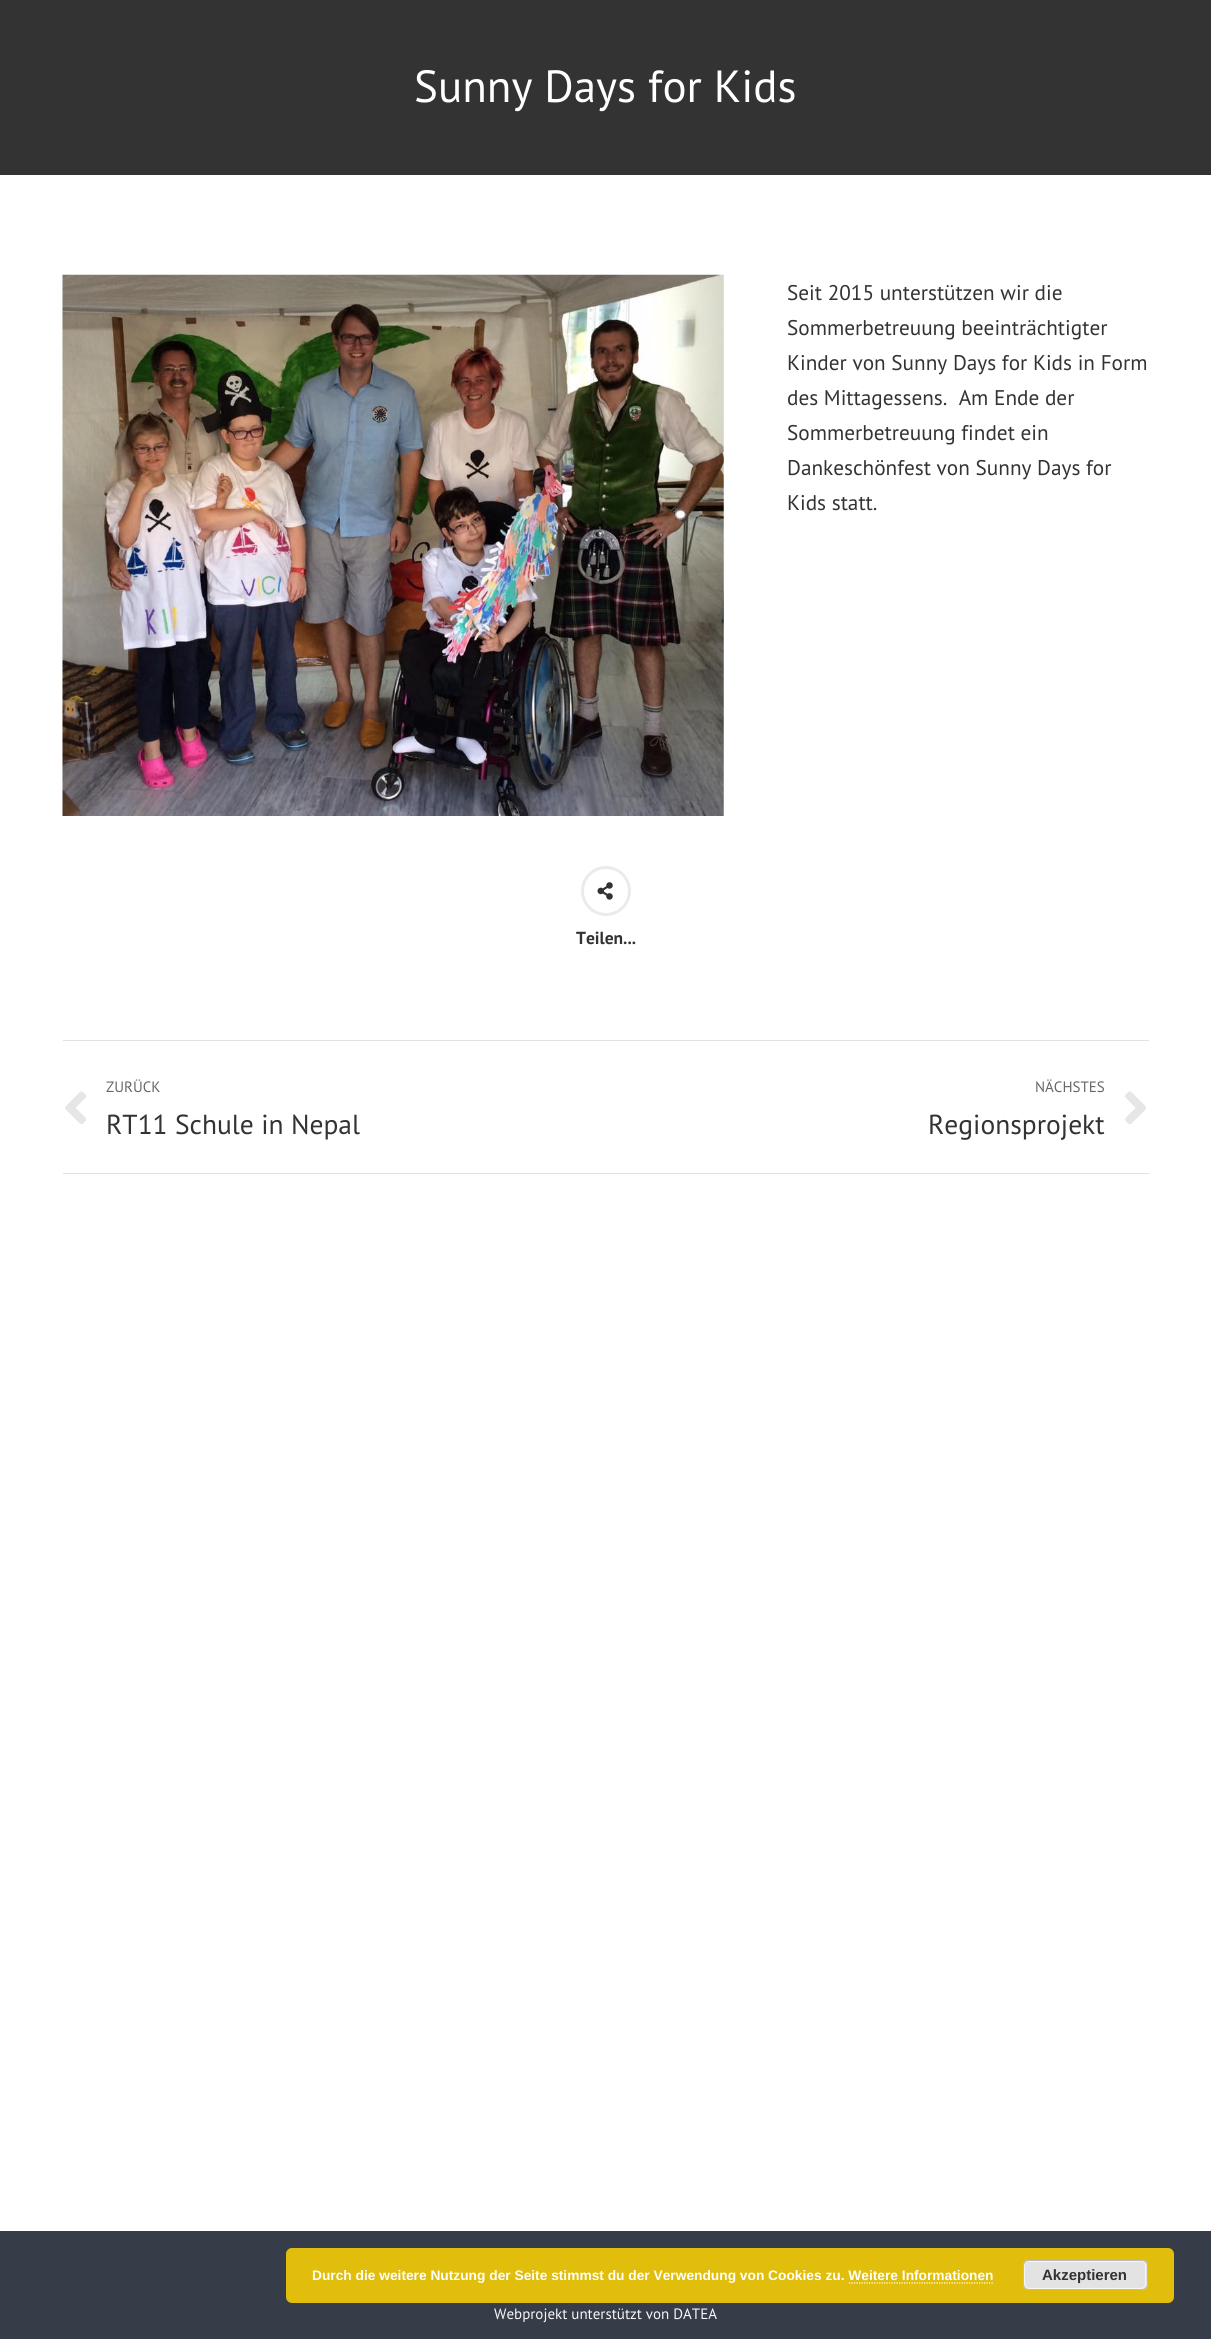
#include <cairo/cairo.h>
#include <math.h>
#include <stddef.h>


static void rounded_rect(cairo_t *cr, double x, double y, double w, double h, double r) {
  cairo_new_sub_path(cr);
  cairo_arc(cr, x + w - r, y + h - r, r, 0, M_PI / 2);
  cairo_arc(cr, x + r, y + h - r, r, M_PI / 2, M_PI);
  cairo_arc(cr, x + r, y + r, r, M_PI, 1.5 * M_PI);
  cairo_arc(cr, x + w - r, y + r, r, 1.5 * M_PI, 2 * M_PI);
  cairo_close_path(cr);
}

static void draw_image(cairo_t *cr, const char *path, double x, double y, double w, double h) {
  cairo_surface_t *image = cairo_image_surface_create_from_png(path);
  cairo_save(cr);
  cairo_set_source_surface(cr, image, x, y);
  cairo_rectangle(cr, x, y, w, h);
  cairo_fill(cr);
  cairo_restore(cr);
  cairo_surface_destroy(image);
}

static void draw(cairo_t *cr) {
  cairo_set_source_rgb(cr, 54 / 255.0, 60 / 255.0, 72 / 255.0);
  cairo_paint(cr);
  cairo_set_source_rgb(cr, 1, 1, 1);
  cairo_rectangle(cr, 0, 175, 1211, 2056);
  cairo_fill(cr);
  cairo_set_source_rgb(cr, 51 / 255.0, 51 / 255.0, 51 / 255.0);
  cairo_rectangle(cr, 0, 0, 1211, 175);
  cairo_fill(cr);
  draw_image(cr, "images/1.png", 62, 274, 662, 542);
  cairo_arc(cr, 606, 891, 23.5, 0, 2 * M_PI);
  cairo_set_source_rgb(cr, 235 / 255.0, 235 / 255.0, 235 / 255.0);
  cairo_set_line_width(cr, 3);
  cairo_stroke(cr);
  draw_image(cr, "images/2.png", 597, 882, 16, 18);
  cairo_set_source_rgb(cr, 226 / 255.0, 226 / 255.0, 226 / 255.0);
  cairo_rectangle(cr, 63, 1040, 1086, 1);
  cairo_fill(cr);
  cairo_rectangle(cr, 63, 1173, 1086, 1);
  cairo_fill(cr);
  draw_image(cr, "images/3.png", 65, 1091, 21, 33);
  draw_image(cr, "images/4.png", 1125, 1091, 21, 33);
  cairo_set_source_rgba(cr, 1, 213 / 255.0, 0, 0.85);
  rounded_rect(cr, 286, 2248, 888, 55, 6);
  cairo_fill(cr);
  cairo_set_source_rgb(cr, 227 / 255.0, 227 / 255.0, 227 / 255.0);
  rounded_rect(cr, 1023, 2260, 125, 30, 6);
  cairo_fill(cr);
  rounded_rect(cr, 1024.5, 2261.5, 121, 27, 4.5);
  cairo_set_source_rgb(cr, 246 / 255.0, 246 / 255.0, 246 / 255.0);
  cairo_set_line_width(cr, 1);
  cairo_stroke(cr);
  rounded_rect(cr, 1023.5, 2260.5, 124, 29, 5.5);
  cairo_set_source_rgb(cr, 187 / 255.0, 187 / 255.0, 187 / 255.0);
  cairo_stroke(cr);
  cairo_new_path(cr);
  cairo_move_to(cr, 849, 2283);
  cairo_line_to(cr, 994, 2283);
  cairo_set_source_rgb(cr, 1, 1, 1);
  cairo_set_line_width(cr, 1.2);
  cairo_set_dash(cr, (double[]){1.25, 1.25}, 2, 0);
  cairo_stroke(cr);
  cairo_select_font_face(cr, "PT Sans", CAIRO_FONT_SLANT_NORMAL, CAIRO_FONT_WEIGHT_NORMAL);
  cairo_set_font_size(cr, 45);
  cairo_move_to(cr, 414, 102);
  cairo_show_text(cr, "Sunny Days for Kids");
  cairo_set_font_size(cr, 21.25);
  cairo_set_source_rgb(cr, 51 / 255.0, 51 / 255.0, 51 / 255.0);
  cairo_move_to(cr, 787, 300);
  cairo_show_text(cr, "Seit 2015 unterstützen wir die");
  cairo_move_to(cr, 787, 335);
  cairo_show_text(cr, "Sommerbetreuung beeinträchtigter");
  cairo_move_to(cr, 787, 370);
  cairo_show_text(cr, "Kinder von Sunny Days for Kids in Form");
  cairo_move_to(cr, 787, 405);
  cairo_show_text(cr, "des Mittagessens.  Am Ende der");
  cairo_move_to(cr, 787, 440);
  cairo_show_text(cr, "Sommerbetreuung findet ein");
  cairo_move_to(cr, 787, 475);
  cairo_show_text(cr, "Dankeschönfest von Sunny Days for");
  cairo_move_to(cr, 787, 510);
  cairo_show_text(cr, "Kids statt.");
  cairo_select_font_face(cr, "PT Sans", CAIRO_FONT_SLANT_NORMAL, CAIRO_FONT_WEIGHT_BOLD);
  cairo_set_font_size(cr, 17.5);
  cairo_move_to(cr, 576, 944);
  cairo_show_text(cr, "Teilen...");
  cairo_select_font_face(cr, "PT Sans", CAIRO_FONT_SLANT_NORMAL, CAIRO_FONT_WEIGHT_NORMAL);
  cairo_set_font_size(cr, 15);
  cairo_set_source_rgb(cr, 102 / 255.0, 102 / 255.0, 102 / 255.0);
  cairo_move_to(cr, 106, 1092);
  cairo_show_text(cr, "ZURÜCK");
  cairo_set_font_size(cr, 27.5);
  cairo_set_source_rgb(cr, 51 / 255.0, 51 / 255.0, 51 / 255.0);
  cairo_move_to(cr, 106, 1134);
  cairo_show_text(cr, "RT11 Schule in Nepal");
  cairo_set_font_size(cr, 15);
  cairo_set_source_rgb(cr, 102 / 255.0, 102 / 255.0, 102 / 255.0);
  cairo_move_to(cr, 1035, 1092);
  cairo_show_text(cr, "NÄCHSTES");
  cairo_set_font_size(cr, 27.5);
  cairo_set_source_rgb(cr, 51 / 255.0, 51 / 255.0, 51 / 255.0);
  cairo_move_to(cr, 928, 1134);
  cairo_show_text(cr, "Regionsprojekt");
  cairo_set_font_size(cr, 15);
  cairo_set_source_rgb(cr, 246 / 255.0, 247 / 255.0, 250 / 255.0);
  cairo_move_to(cr, 494, 2319);
  cairo_show_text(cr, "Webprojekt unterstützt von DATEA");
  cairo_select_font_face(cr, "Liberation Sans", CAIRO_FONT_SLANT_NORMAL, CAIRO_FONT_WEIGHT_BOLD);
  cairo_set_font_size(cr, 13.75);
  cairo_set_source_rgb(cr, 1, 1, 1);
  cairo_move_to(cr, 312, 2280);
  cairo_show_text(cr, "Durch die weitere Nutzung der Seite stimmst du der Verwendung von Cookies zu. Weitere Informationen");
  cairo_set_font_size(cr, 15);
  cairo_set_source_rgb(cr, 51 / 255.0, 51 / 255.0, 51 / 255.0);
  cairo_move_to(cr, 1042, 2280);
  cairo_show_text(cr, "Akzeptieren");
}

int main(void) {
  cairo_surface_t *surface = cairo_image_surface_create(CAIRO_FORMAT_RGB24, 1211, 2339);
  cairo_t *cr = cairo_create(surface);
  cairo_font_options_t *options = cairo_font_options_create();
  cairo_font_options_set_hint_metrics(options, CAIRO_HINT_METRICS_OFF);
  cairo_font_options_set_hint_style(options, CAIRO_HINT_STYLE_NONE);
  cairo_set_font_options(cr, options);
  cairo_set_miter_limit(cr, 4);
  draw(cr);
  cairo_surface_write_to_png(surface, "out.png");
  cairo_font_options_destroy(options);
  cairo_destroy(cr);
  cairo_surface_destroy(surface);
  return 0;
}
